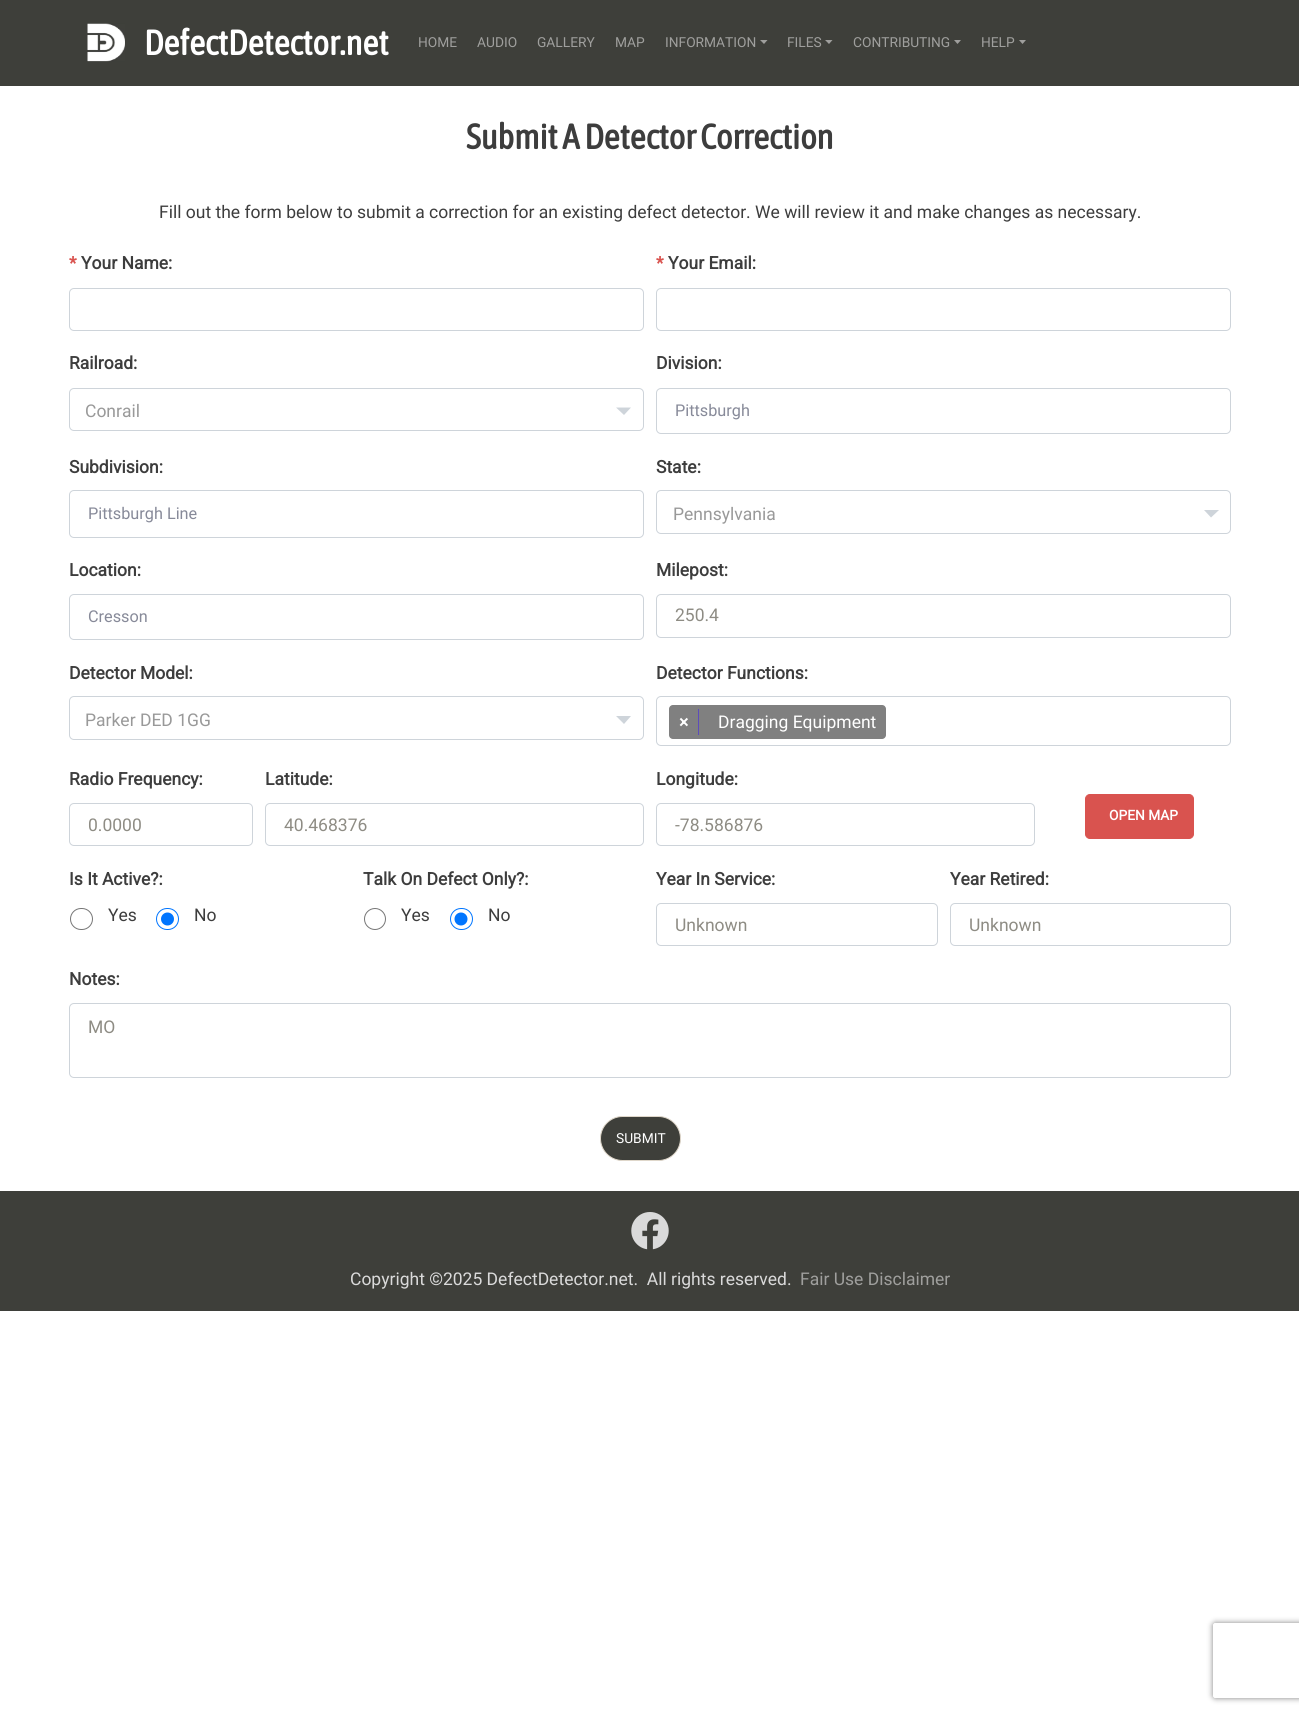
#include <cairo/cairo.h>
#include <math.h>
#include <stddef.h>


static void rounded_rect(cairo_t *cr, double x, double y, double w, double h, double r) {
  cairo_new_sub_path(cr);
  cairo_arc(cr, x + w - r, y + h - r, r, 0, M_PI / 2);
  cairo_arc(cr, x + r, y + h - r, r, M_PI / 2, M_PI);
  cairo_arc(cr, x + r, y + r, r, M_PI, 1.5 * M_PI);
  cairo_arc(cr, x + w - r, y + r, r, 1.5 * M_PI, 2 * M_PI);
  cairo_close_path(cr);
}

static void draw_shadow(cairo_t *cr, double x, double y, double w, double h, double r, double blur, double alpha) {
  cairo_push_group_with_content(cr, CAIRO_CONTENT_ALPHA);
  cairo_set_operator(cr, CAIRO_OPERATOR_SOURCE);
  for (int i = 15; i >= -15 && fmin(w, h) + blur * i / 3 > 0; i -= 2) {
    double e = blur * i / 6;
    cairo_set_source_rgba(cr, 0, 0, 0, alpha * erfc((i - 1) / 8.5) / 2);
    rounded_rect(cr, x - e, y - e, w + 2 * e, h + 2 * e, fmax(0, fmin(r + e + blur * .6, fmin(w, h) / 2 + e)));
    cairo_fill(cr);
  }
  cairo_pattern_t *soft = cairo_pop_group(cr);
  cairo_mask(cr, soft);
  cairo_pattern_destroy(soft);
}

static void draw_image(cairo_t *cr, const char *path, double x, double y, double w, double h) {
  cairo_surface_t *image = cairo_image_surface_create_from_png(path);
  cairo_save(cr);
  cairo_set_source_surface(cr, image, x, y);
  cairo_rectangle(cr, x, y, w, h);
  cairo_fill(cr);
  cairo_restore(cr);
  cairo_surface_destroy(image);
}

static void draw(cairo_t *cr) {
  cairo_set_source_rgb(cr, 1, 1, 1);
  cairo_paint(cr);
  cairo_set_source_rgb(cr, 62 / 255.0, 63 / 255.0, 58 / 255.0);
  cairo_rectangle(cr, 0, 0, 1299, 86);
  cairo_fill(cr);
  draw_image(cr, "images/1.png", 87, 23, 38, 39);
  cairo_set_source_rgb(cr, 159 / 255.0, 159 / 255.0, 157 / 255.0);
  cairo_new_path(cr);
  cairo_move_to(cr, 760, 40);
  cairo_line_to(cr, 767.5, 40);
  cairo_line_to(cr, 764, 44);
  cairo_close_path(cr);
  cairo_fill(cr);
  cairo_new_path(cr);
  cairo_move_to(cr, 825, 40);
  cairo_line_to(cr, 832.5, 40);
  cairo_line_to(cr, 829, 44);
  cairo_close_path(cr);
  cairo_fill(cr);
  cairo_new_path(cr);
  cairo_move_to(cr, 954, 40);
  cairo_line_to(cr, 961, 40);
  cairo_line_to(cr, 957.5, 44);
  cairo_close_path(cr);
  cairo_fill(cr);
  cairo_new_path(cr);
  cairo_move_to(cr, 1019, 40);
  cairo_line_to(cr, 1026, 40);
  cairo_line_to(cr, 1022.5, 44);
  cairo_close_path(cr);
  cairo_fill(cr);
  rounded_rect(cr, 69.5, 288.5, 574, 42, 4.5);
  cairo_set_source_rgb(cr, 206 / 255.0, 212 / 255.0, 218 / 255.0);
  cairo_set_line_width(cr, 1);
  cairo_stroke(cr);
  rounded_rect(cr, 656.5, 288.5, 574, 42, 4.5);
  cairo_stroke(cr);
  rounded_rect(cr, 69.5, 388.5, 574, 42, 4.5);
  cairo_stroke(cr);
  cairo_new_path(cr);
  cairo_move_to(cr, 616, 407.5);
  cairo_line_to(cr, 631, 407.5);
  cairo_line_to(cr, 624, 415);
  cairo_close_path(cr);
  cairo_fill(cr);
  rounded_rect(cr, 656.5, 388.5, 574, 45, 4.5);
  cairo_stroke(cr);
  rounded_rect(cr, 69.5, 490.5, 574, 47, 4.5);
  cairo_stroke(cr);
  rounded_rect(cr, 656.5, 490.5, 574, 43, 4.5);
  cairo_stroke(cr);
  cairo_new_path(cr);
  cairo_move_to(cr, 1204, 510);
  cairo_line_to(cr, 1219, 510);
  cairo_line_to(cr, 1211, 517.5);
  cairo_close_path(cr);
  cairo_fill(cr);
  rounded_rect(cr, 69.5, 594.5, 574, 45, 4.5);
  cairo_stroke(cr);
  rounded_rect(cr, 656.5, 594.5, 574, 43, 4.5);
  cairo_stroke(cr);
  rounded_rect(cr, 69.5, 696.5, 574, 43, 4.5);
  cairo_stroke(cr);
  cairo_new_path(cr);
  cairo_move_to(cr, 616, 716);
  cairo_line_to(cr, 631, 716);
  cairo_line_to(cr, 624, 724);
  cairo_close_path(cr);
  cairo_fill(cr);
  rounded_rect(cr, 656.5, 696.5, 574, 49, 4.5);
  cairo_stroke(cr);
  cairo_set_source_rgb(cr, 128 / 255.0, 128 / 255.0, 128 / 255.0);
  rounded_rect(cr, 669, 705, 217, 34, 4);
  cairo_fill(cr);
  cairo_set_source_rgb(cr, 93 / 255.0, 76 / 255.0, 187 / 255.0);
  cairo_rectangle(cr, 698, 709, 1, 26);
  cairo_fill(cr);
  rounded_rect(cr, 69.5, 803.5, 183, 42, 4.5);
  cairo_set_source_rgb(cr, 206 / 255.0, 212 / 255.0, 218 / 255.0);
  cairo_stroke(cr);
  rounded_rect(cr, 265.5, 803.5, 378, 42, 4.5);
  cairo_stroke(cr);
  rounded_rect(cr, 656.5, 803.5, 378, 42, 4.5);
  cairo_stroke(cr);
  cairo_set_source_rgb(cr, 217 / 255.0, 83 / 255.0, 79 / 255.0);
  rounded_rect(cr, 1085.5, 794.5, 108, 44, 4.5);
  cairo_fill_preserve(cr);
  cairo_stroke(cr);
  rounded_rect(cr, 70.5, 908.5, 22, 21, 10.5);
  cairo_set_source_rgb(cr, 118 / 255.0, 118 / 255.0, 118 / 255.0);
  cairo_stroke(cr);
  rounded_rect(cr, 156.5, 908.5, 22, 21, 10.5);
  cairo_set_source_rgb(cr, 0, 117 / 255.0, 1);
  cairo_stroke(cr);
  cairo_arc(cr, 167.5, 919, 6.5, 0, 2 * M_PI);
  cairo_fill(cr);
  cairo_arc(cr, 375, 919, 10.5, 0, 2 * M_PI);
  cairo_set_source_rgb(cr, 118 / 255.0, 118 / 255.0, 118 / 255.0);
  cairo_stroke(cr);
  rounded_rect(cr, 450.5, 908.5, 22, 21, 10.5);
  cairo_set_source_rgb(cr, 0, 117 / 255.0, 1);
  cairo_stroke(cr);
  cairo_arc(cr, 461, 919, 6.5, 0, 2 * M_PI);
  cairo_fill(cr);
  rounded_rect(cr, 656.5, 903.5, 281, 42, 4.5);
  cairo_set_source_rgb(cr, 206 / 255.0, 212 / 255.0, 218 / 255.0);
  cairo_stroke(cr);
  rounded_rect(cr, 950.5, 903.5, 280, 42, 4.5);
  cairo_stroke(cr);
  rounded_rect(cr, 69.5, 1003.5, 1161, 74, 4.5);
  cairo_stroke(cr);
  cairo_set_source_rgb(cr, 62 / 255.0, 63 / 255.0, 58 / 255.0);
  rounded_rect(cr, 600.5, 1116.5, 80, 44, 22);
  cairo_fill_preserve(cr);
  cairo_set_source_rgb(cr, 223 / 255.0, 215 / 255.0, 202 / 255.0);
  cairo_stroke(cr);
  cairo_set_source_rgb(cr, 62 / 255.0, 63 / 255.0, 58 / 255.0);
  cairo_rectangle(cr, 0, 1191, 1299, 120);
  cairo_fill(cr);
  draw_image(cr, "images/2.png", 631, 1212, 38, 38);
  cairo_save(cr);
  cairo_set_fill_rule(cr, CAIRO_FILL_RULE_EVEN_ODD);
  cairo_new_path(cr);
  cairo_move_to(cr, 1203, 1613);
  cairo_line_to(cr, 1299, 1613);
  cairo_line_to(cr, 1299, 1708);
  cairo_line_to(cr, 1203, 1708);
  cairo_close_path(cr);
  cairo_move_to(cr, 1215.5, 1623);
  cairo_line_to(cr, 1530.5, 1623);
  cairo_curve_to(cr, 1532, 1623, 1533, 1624, 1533, 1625.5);
  cairo_line_to(cr, 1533, 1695.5);
  cairo_curve_to(cr, 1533, 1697, 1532, 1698, 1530.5, 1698);
  cairo_line_to(cr, 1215.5, 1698);
  cairo_curve_to(cr, 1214, 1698, 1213, 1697, 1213, 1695.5);
  cairo_line_to(cr, 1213, 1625.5);
  cairo_curve_to(cr, 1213, 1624, 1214, 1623, 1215.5, 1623);
  cairo_close_path(cr);
  cairo_clip(cr);
  cairo_set_source_rgb(cr, 128 / 255.0, 128 / 255.0, 128 / 255.0);
  draw_shadow(cr, 1213, 1623, 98, 75, 2.5, 3, 1);
  cairo_restore(cr);
  cairo_select_font_face(cr, "Asap Condensed", CAIRO_FONT_SLANT_NORMAL, CAIRO_FONT_WEIGHT_BOLD);
  cairo_set_font_size(cr, 35);
  cairo_set_source_rgb(cr, 1, 1, 1);
  cairo_move_to(cr, 144, 55);
  cairo_show_text(cr, "DefectDetector.net");
  cairo_select_font_face(cr, "Roboto", CAIRO_FONT_SLANT_NORMAL, CAIRO_FONT_WEIGHT_NORMAL);
  cairo_set_font_size(cr, 13.75);
  cairo_set_source_rgb(cr, 159 / 255.0, 159 / 255.0, 157 / 255.0);
  cairo_move_to(cr, 418, 47);
  cairo_show_text(cr, "HOME");
  cairo_move_to(cr, 477, 47);
  cairo_show_text(cr, "AUDIO");
  cairo_move_to(cr, 537, 47);
  cairo_show_text(cr, "GALLERY");
  cairo_move_to(cr, 615, 47);
  cairo_show_text(cr, "MAP");
  cairo_move_to(cr, 665, 47);
  cairo_show_text(cr, "INFORMATION");
  cairo_move_to(cr, 787, 47);
  cairo_show_text(cr, "FILES");
  cairo_move_to(cr, 853, 47);
  cairo_show_text(cr, "CONTRIBUTING");
  cairo_move_to(cr, 981, 47);
  cairo_show_text(cr, "HELP");
  cairo_select_font_face(cr, "Asap Condensed", CAIRO_FONT_SLANT_NORMAL, CAIRO_FONT_WEIGHT_BOLD);
  cairo_set_font_size(cr, 35);
  cairo_set_source_rgb(cr, 61 / 255.0, 61 / 255.0, 61 / 255.0);
  cairo_move_to(cr, 466, 149);
  cairo_show_text(cr, "Submit A Detector Correction");
  cairo_select_font_face(cr, "Roboto", CAIRO_FONT_SLANT_NORMAL, CAIRO_FONT_WEIGHT_NORMAL);
  cairo_set_font_size(cr, 17.5);
  cairo_move_to(cr, 159, 218);
  cairo_show_text(cr, "Fill out the form below to submit a correction for an existing defect detector. We will review it and make changes as necessary.");
  cairo_select_font_face(cr, "Roboto", CAIRO_FONT_SLANT_NORMAL, CAIRO_FONT_WEIGHT_BOLD);
  cairo_set_source_rgb(cr, 217 / 255.0, 83 / 255.0, 79 / 255.0);
  cairo_move_to(cr, 69, 269);
  cairo_show_text(cr, "*");
  cairo_set_source_rgb(cr, 61 / 255.0, 61 / 255.0, 61 / 255.0);
  cairo_move_to(cr, 81, 269);
  cairo_show_text(cr, "Your Name:");
  cairo_set_source_rgb(cr, 217 / 255.0, 83 / 255.0, 79 / 255.0);
  cairo_move_to(cr, 656, 269);
  cairo_show_text(cr, "*");
  cairo_set_source_rgb(cr, 61 / 255.0, 61 / 255.0, 61 / 255.0);
  cairo_move_to(cr, 668, 269);
  cairo_show_text(cr, "Your Email:");
  cairo_move_to(cr, 69, 369);
  cairo_show_text(cr, "Railroad:");
  cairo_select_font_face(cr, "Roboto", CAIRO_FONT_SLANT_NORMAL, CAIRO_FONT_WEIGHT_NORMAL);
  cairo_set_source_rgb(cr, 153 / 255.0, 153 / 255.0, 153 / 255.0);
  cairo_move_to(cr, 85, 417);
  cairo_show_text(cr, "Conrail");
  cairo_select_font_face(cr, "Roboto", CAIRO_FONT_SLANT_NORMAL, CAIRO_FONT_WEIGHT_BOLD);
  cairo_set_source_rgb(cr, 61 / 255.0, 61 / 255.0, 61 / 255.0);
  cairo_move_to(cr, 656, 369);
  cairo_show_text(cr, "Division:");
  cairo_select_font_face(cr, "Roboto", CAIRO_FONT_SLANT_NORMAL, CAIRO_FONT_WEIGHT_NORMAL);
  cairo_set_font_size(cr, 16.25);
  cairo_set_source_rgb(cr, 135 / 255.0, 138 / 255.0, 153 / 255.0);
  cairo_move_to(cr, 675, 416);
  cairo_show_text(cr, "Pittsburgh");
  cairo_select_font_face(cr, "Roboto", CAIRO_FONT_SLANT_NORMAL, CAIRO_FONT_WEIGHT_BOLD);
  cairo_set_font_size(cr, 17.5);
  cairo_set_source_rgb(cr, 61 / 255.0, 61 / 255.0, 61 / 255.0);
  cairo_move_to(cr, 69, 473);
  cairo_show_text(cr, "Subdivision:");
  cairo_select_font_face(cr, "Roboto", CAIRO_FONT_SLANT_NORMAL, CAIRO_FONT_WEIGHT_NORMAL);
  cairo_set_font_size(cr, 16.25);
  cairo_set_source_rgb(cr, 135 / 255.0, 138 / 255.0, 153 / 255.0);
  cairo_move_to(cr, 88, 519);
  cairo_show_text(cr, "Pittsburgh Line");
  cairo_select_font_face(cr, "Roboto", CAIRO_FONT_SLANT_NORMAL, CAIRO_FONT_WEIGHT_BOLD);
  cairo_set_font_size(cr, 17.5);
  cairo_set_source_rgb(cr, 61 / 255.0, 61 / 255.0, 61 / 255.0);
  cairo_move_to(cr, 656, 473);
  cairo_show_text(cr, "State:");
  cairo_select_font_face(cr, "Roboto", CAIRO_FONT_SLANT_NORMAL, CAIRO_FONT_WEIGHT_NORMAL);
  cairo_set_source_rgb(cr, 153 / 255.0, 153 / 255.0, 153 / 255.0);
  cairo_move_to(cr, 673, 520);
  cairo_show_text(cr, "Pennsylvania");
  cairo_select_font_face(cr, "Roboto", CAIRO_FONT_SLANT_NORMAL, CAIRO_FONT_WEIGHT_BOLD);
  cairo_set_source_rgb(cr, 61 / 255.0, 61 / 255.0, 61 / 255.0);
  cairo_move_to(cr, 69, 576);
  cairo_show_text(cr, "Location:");
  cairo_select_font_face(cr, "Roboto", CAIRO_FONT_SLANT_NORMAL, CAIRO_FONT_WEIGHT_NORMAL);
  cairo_set_font_size(cr, 16.25);
  cairo_set_source_rgb(cr, 135 / 255.0, 138 / 255.0, 153 / 255.0);
  cairo_move_to(cr, 88, 622);
  cairo_show_text(cr, "Cresson");
  cairo_select_font_face(cr, "Roboto", CAIRO_FONT_SLANT_NORMAL, CAIRO_FONT_WEIGHT_BOLD);
  cairo_set_font_size(cr, 17.5);
  cairo_set_source_rgb(cr, 61 / 255.0, 61 / 255.0, 61 / 255.0);
  cairo_move_to(cr, 656, 576);
  cairo_show_text(cr, "Milepost:");
  cairo_select_font_face(cr, "Roboto", CAIRO_FONT_SLANT_NORMAL, CAIRO_FONT_WEIGHT_NORMAL);
  cairo_set_source_rgb(cr, 142 / 255.0, 140 / 255.0, 132 / 255.0);
  cairo_move_to(cr, 675, 621);
  cairo_show_text(cr, "250.4");
  cairo_select_font_face(cr, "Roboto", CAIRO_FONT_SLANT_NORMAL, CAIRO_FONT_WEIGHT_BOLD);
  cairo_set_source_rgb(cr, 61 / 255.0, 61 / 255.0, 61 / 255.0);
  cairo_move_to(cr, 69, 679);
  cairo_show_text(cr, "Detector Model:");
  cairo_select_font_face(cr, "Roboto", CAIRO_FONT_SLANT_NORMAL, CAIRO_FONT_WEIGHT_NORMAL);
  cairo_set_source_rgb(cr, 153 / 255.0, 153 / 255.0, 153 / 255.0);
  cairo_move_to(cr, 85, 726);
  cairo_show_text(cr, "Parker DED 1GG");
  cairo_select_font_face(cr, "Roboto", CAIRO_FONT_SLANT_NORMAL, CAIRO_FONT_WEIGHT_BOLD);
  cairo_set_source_rgb(cr, 61 / 255.0, 61 / 255.0, 61 / 255.0);
  cairo_move_to(cr, 656, 679);
  cairo_show_text(cr, "Detector Functions:");
  cairo_set_source_rgb(cr, 1, 1, 1);
  cairo_move_to(cr, 679, 728);
  cairo_show_text(cr, "×");
  cairo_select_font_face(cr, "Roboto", CAIRO_FONT_SLANT_NORMAL, CAIRO_FONT_WEIGHT_NORMAL);
  cairo_move_to(cr, 718, 728);
  cairo_show_text(cr, "Dragging Equipment");
  cairo_select_font_face(cr, "Roboto", CAIRO_FONT_SLANT_NORMAL, CAIRO_FONT_WEIGHT_BOLD);
  cairo_set_source_rgb(cr, 61 / 255.0, 61 / 255.0, 61 / 255.0);
  cairo_move_to(cr, 69, 785);
  cairo_show_text(cr, "Radio Frequency:");
  cairo_select_font_face(cr, "Roboto", CAIRO_FONT_SLANT_NORMAL, CAIRO_FONT_WEIGHT_NORMAL);
  cairo_set_source_rgb(cr, 142 / 255.0, 140 / 255.0, 132 / 255.0);
  cairo_move_to(cr, 88, 831);
  cairo_show_text(cr, "0.0000");
  cairo_select_font_face(cr, "Roboto", CAIRO_FONT_SLANT_NORMAL, CAIRO_FONT_WEIGHT_BOLD);
  cairo_set_source_rgb(cr, 61 / 255.0, 61 / 255.0, 61 / 255.0);
  cairo_move_to(cr, 265, 785);
  cairo_show_text(cr, "Latitude:");
  cairo_select_font_face(cr, "Roboto", CAIRO_FONT_SLANT_NORMAL, CAIRO_FONT_WEIGHT_NORMAL);
  cairo_set_source_rgb(cr, 142 / 255.0, 140 / 255.0, 132 / 255.0);
  cairo_move_to(cr, 284, 831);
  cairo_show_text(cr, "40.468376");
  cairo_select_font_face(cr, "Roboto", CAIRO_FONT_SLANT_NORMAL, CAIRO_FONT_WEIGHT_BOLD);
  cairo_set_source_rgb(cr, 61 / 255.0, 61 / 255.0, 61 / 255.0);
  cairo_move_to(cr, 656, 785);
  cairo_show_text(cr, "Longitude:");
  cairo_select_font_face(cr, "Roboto", CAIRO_FONT_SLANT_NORMAL, CAIRO_FONT_WEIGHT_NORMAL);
  cairo_set_source_rgb(cr, 142 / 255.0, 140 / 255.0, 132 / 255.0);
  cairo_move_to(cr, 675, 831);
  cairo_show_text(cr, "-78.586876");
  cairo_select_font_face(cr, "Roboto", CAIRO_FONT_SLANT_NORMAL, CAIRO_FONT_WEIGHT_BOLD);
  cairo_set_font_size(cr, 13.75);
  cairo_set_source_rgb(cr, 1, 1, 1);
  cairo_move_to(cr, 1109, 820);
  cairo_show_text(cr, "OPEN MAP");
  cairo_set_font_size(cr, 17.5);
  cairo_set_source_rgb(cr, 61 / 255.0, 61 / 255.0, 61 / 255.0);
  cairo_move_to(cr, 69, 885);
  cairo_show_text(cr, "Is It Active?:");
  cairo_select_font_face(cr, "Roboto", CAIRO_FONT_SLANT_NORMAL, CAIRO_FONT_WEIGHT_NORMAL);
  cairo_move_to(cr, 108, 921);
  cairo_show_text(cr, "Yes");
  cairo_move_to(cr, 194, 921);
  cairo_show_text(cr, "No");
  cairo_select_font_face(cr, "Roboto", CAIRO_FONT_SLANT_NORMAL, CAIRO_FONT_WEIGHT_BOLD);
  cairo_move_to(cr, 363, 885);
  cairo_show_text(cr, "Talk On Defect Only?:");
  cairo_select_font_face(cr, "Roboto", CAIRO_FONT_SLANT_NORMAL, CAIRO_FONT_WEIGHT_NORMAL);
  cairo_move_to(cr, 401, 921);
  cairo_show_text(cr, "Yes");
  cairo_move_to(cr, 488, 921);
  cairo_show_text(cr, "No");
  cairo_select_font_face(cr, "Roboto", CAIRO_FONT_SLANT_NORMAL, CAIRO_FONT_WEIGHT_BOLD);
  cairo_move_to(cr, 656, 885);
  cairo_show_text(cr, "Year In Service:");
  cairo_select_font_face(cr, "Roboto", CAIRO_FONT_SLANT_NORMAL, CAIRO_FONT_WEIGHT_NORMAL);
  cairo_set_source_rgb(cr, 142 / 255.0, 140 / 255.0, 132 / 255.0);
  cairo_move_to(cr, 675, 931);
  cairo_show_text(cr, "Unknown");
  cairo_select_font_face(cr, "Roboto", CAIRO_FONT_SLANT_NORMAL, CAIRO_FONT_WEIGHT_BOLD);
  cairo_set_source_rgb(cr, 61 / 255.0, 61 / 255.0, 61 / 255.0);
  cairo_move_to(cr, 950, 885);
  cairo_show_text(cr, "Year Retired:");
  cairo_select_font_face(cr, "Roboto", CAIRO_FONT_SLANT_NORMAL, CAIRO_FONT_WEIGHT_NORMAL);
  cairo_set_source_rgb(cr, 142 / 255.0, 140 / 255.0, 132 / 255.0);
  cairo_move_to(cr, 969, 931);
  cairo_show_text(cr, "Unknown");
  cairo_select_font_face(cr, "Roboto", CAIRO_FONT_SLANT_NORMAL, CAIRO_FONT_WEIGHT_BOLD);
  cairo_set_source_rgb(cr, 61 / 255.0, 61 / 255.0, 61 / 255.0);
  cairo_move_to(cr, 69, 985);
  cairo_show_text(cr, "Notes:");
  cairo_select_font_face(cr, "Roboto", CAIRO_FONT_SLANT_NORMAL, CAIRO_FONT_WEIGHT_NORMAL);
  cairo_set_source_rgb(cr, 142 / 255.0, 140 / 255.0, 132 / 255.0);
  cairo_move_to(cr, 88, 1033);
  cairo_show_text(cr, "MO");
  cairo_set_font_size(cr, 13.75);
  cairo_set_source_rgb(cr, 1, 1, 1);
  cairo_move_to(cr, 616, 1143);
  cairo_show_text(cr, "SUBMIT");
  cairo_set_font_size(cr, 17.5);
  cairo_set_source_rgb(cr, 218 / 255.0, 218 / 255.0, 218 / 255.0);
  cairo_move_to(cr, 350, 1285);
  cairo_show_text(cr, "Copyright ©2025 DefectDetector.net.  All rights reserved.");
  cairo_set_source_rgb(cr, 159 / 255.0, 159 / 255.0, 157 / 255.0);
  cairo_move_to(cr, 800, 1285);
  cairo_show_text(cr, "Fair Use Disclaimer");
}

int main(void) {
  cairo_surface_t *surface = cairo_image_surface_create(CAIRO_FORMAT_RGB24, 1299, 1714);
  cairo_t *cr = cairo_create(surface);
  cairo_font_options_t *options = cairo_font_options_create();
  cairo_font_options_set_hint_metrics(options, CAIRO_HINT_METRICS_OFF);
  cairo_font_options_set_hint_style(options, CAIRO_HINT_STYLE_NONE);
  cairo_set_font_options(cr, options);
  cairo_set_miter_limit(cr, 4);
  draw(cr);
  cairo_surface_write_to_png(surface, "out.png");
  cairo_font_options_destroy(options);
  cairo_destroy(cr);
  cairo_surface_destroy(surface);
  return 0;
}
